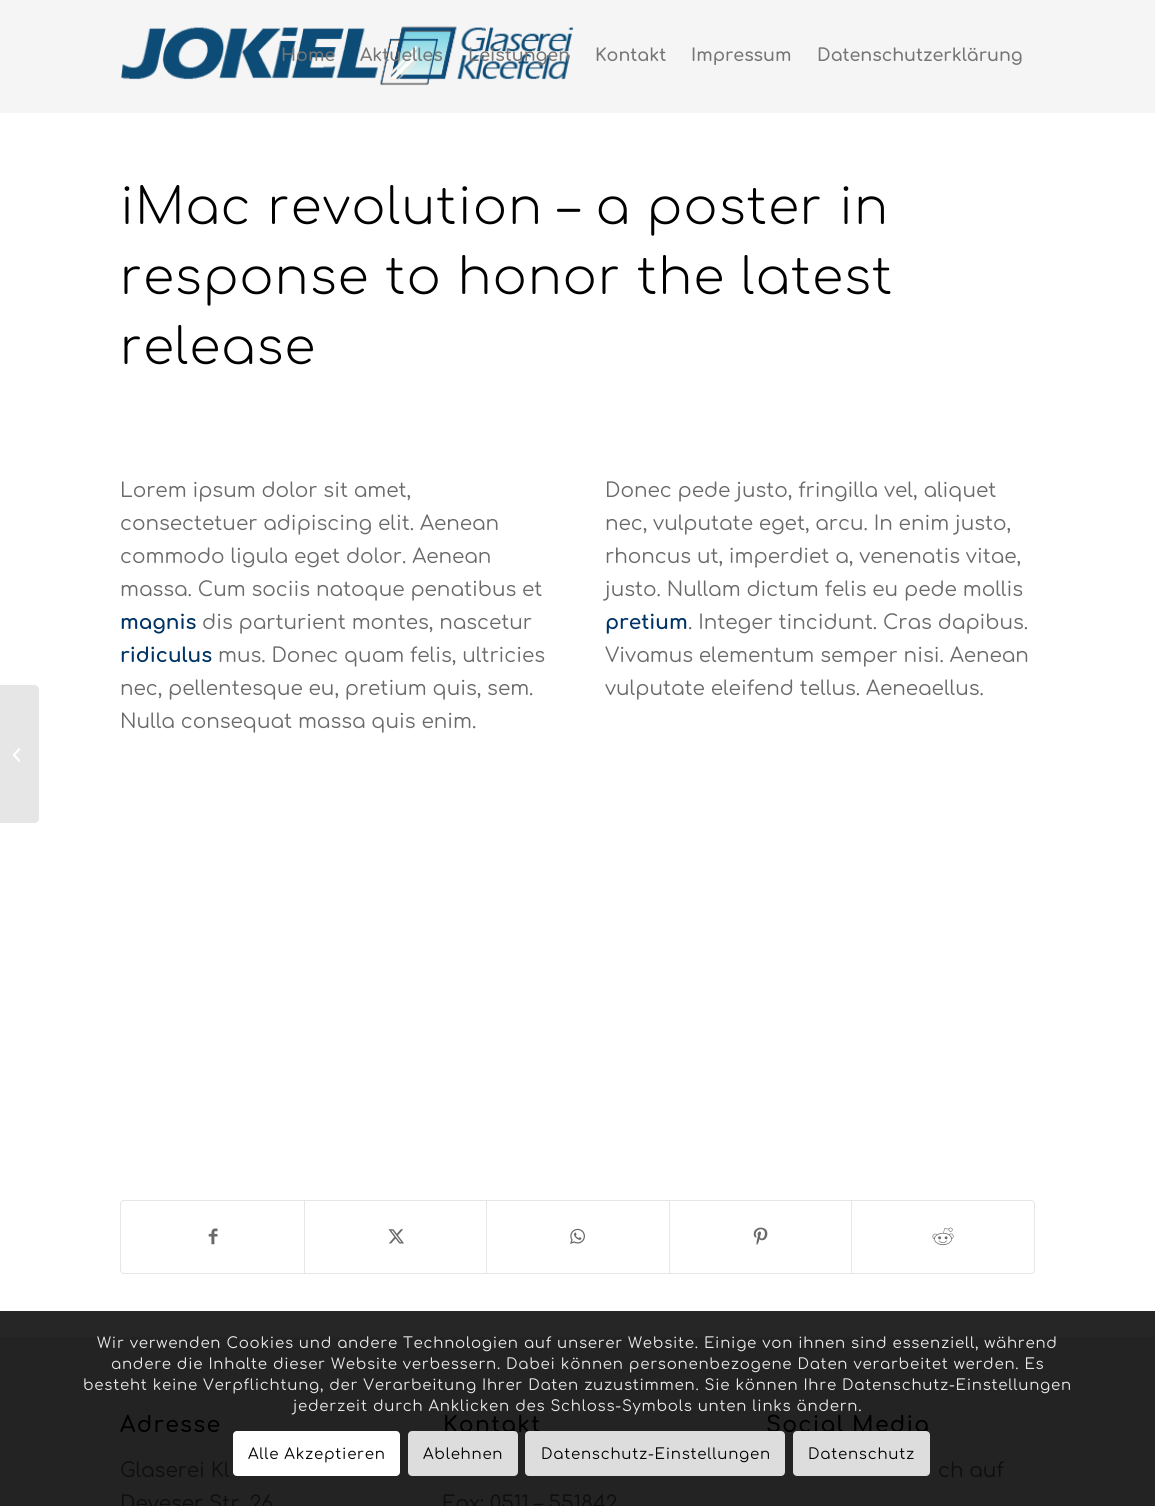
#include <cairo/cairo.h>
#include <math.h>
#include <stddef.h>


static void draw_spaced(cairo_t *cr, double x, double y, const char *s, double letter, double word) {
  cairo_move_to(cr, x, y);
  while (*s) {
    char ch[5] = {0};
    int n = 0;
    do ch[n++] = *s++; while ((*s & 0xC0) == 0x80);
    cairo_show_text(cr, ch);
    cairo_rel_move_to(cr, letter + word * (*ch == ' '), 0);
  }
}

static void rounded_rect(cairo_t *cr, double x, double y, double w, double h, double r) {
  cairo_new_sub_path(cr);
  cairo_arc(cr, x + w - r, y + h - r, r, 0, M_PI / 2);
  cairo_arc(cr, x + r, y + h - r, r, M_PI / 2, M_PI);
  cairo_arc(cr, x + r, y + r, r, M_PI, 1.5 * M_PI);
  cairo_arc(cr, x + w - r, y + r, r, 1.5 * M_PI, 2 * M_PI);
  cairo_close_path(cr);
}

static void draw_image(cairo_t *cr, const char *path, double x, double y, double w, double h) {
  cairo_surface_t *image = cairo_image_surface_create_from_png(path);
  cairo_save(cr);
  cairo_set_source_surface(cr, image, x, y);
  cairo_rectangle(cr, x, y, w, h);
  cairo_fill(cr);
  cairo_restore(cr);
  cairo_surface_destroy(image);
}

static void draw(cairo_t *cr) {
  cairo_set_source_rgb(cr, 1, 1, 1);
  cairo_paint(cr);
  cairo_set_source_rgb(cr, 245 / 255.0, 245 / 255.0, 245 / 255.0);
  cairo_rectangle(cr, 0, 0, 1155, 113);
  cairo_fill(cr);
  draw_image(cr, "images/1.png", 121, 26, 453, 60);
  cairo_set_source_rgb(cr, 230 / 255.0, 230 / 255.0, 230 / 255.0);
  cairo_new_path(cr);
  cairo_move_to(cr, 0, 685);
  cairo_line_to(cr, 34, 685);
  cairo_curve_to(cr, 37, 685, 39, 687, 39, 690);
  cairo_line_to(cr, 39, 818);
  cairo_curve_to(cr, 39, 821, 37, 823, 34, 823);
  cairo_line_to(cr, 0, 823);
  cairo_close_path(cr);
  cairo_fill(cr);
  draw_image(cr, "images/2.png", 13, 748, 7, 14);
  cairo_set_source_rgb(cr, 38 / 255.0, 38 / 255.0, 38 / 255.0);
  cairo_rectangle(cr, 0, 1311, 1155, 26);
  cairo_fill(cr);
  rounded_rect(cr, 120.5, 1200.5, 914, 73, 3.5);
  cairo_set_source_rgb(cr, 230 / 255.0, 230 / 255.0, 230 / 255.0);
  cairo_set_line_width(cr, 1);
  cairo_stroke(cr);
  draw_image(cr, "images/3.png", 208, 1228, 10, 17);
  cairo_rectangle(cr, 304, 1201, 1, 72);
  cairo_fill(cr);
  draw_image(cr, "images/4.png", 388, 1229, 16, 15);
  cairo_rectangle(cr, 486, 1201, 1, 72);
  cairo_fill(cr);
  draw_image(cr, "images/5.png", 570, 1228, 15, 16);
  cairo_rectangle(cr, 669, 1201, 1, 72);
  cairo_fill(cr);
  draw_image(cr, "images/6.png", 753, 1227, 15, 18);
  cairo_rectangle(cr, 851, 1201, 1, 72);
  cairo_fill(cr);
  draw_image(cr, "images/7.png", 932, 1227, 22, 19);
  cairo_set_source_rgb(cr, 35 / 255.0, 35 / 255.0, 35 / 255.0);
  cairo_rectangle(cr, 0, 1337, 1155, 169);
  cairo_fill(cr);
  cairo_set_source_rgb(cr, 1, 1, 1);
  rounded_rect(cr, 233, 1431, 167, 45, 4);
  cairo_fill(cr);
  cairo_select_font_face(cr, "Comfortaa SemiBold", CAIRO_FONT_SLANT_NORMAL, CAIRO_FONT_WEIGHT_NORMAL);
  cairo_set_font_size(cr, 17.5);
  cairo_set_source_rgb(cr, 117 / 255.0, 117 / 255.0, 117 / 255.0);
  cairo_move_to(cr, 281, 61);
  cairo_show_text(cr, "Home");
  cairo_move_to(cr, 360, 61);
  cairo_show_text(cr, "Aktuelles");
  cairo_move_to(cr, 468, 61);
  cairo_show_text(cr, "Leistungen");
  cairo_move_to(cr, 595, 61);
  cairo_show_text(cr, "Kontakt");
  cairo_move_to(cr, 691, 61);
  cairo_show_text(cr, "Impressum");
  cairo_move_to(cr, 817, 61);
  cairo_show_text(cr, "Datenschutzerklärung");
  cairo_select_font_face(cr, "Comfortaa Light", CAIRO_FONT_SLANT_NORMAL, CAIRO_FONT_WEIGHT_NORMAL);
  cairo_set_font_size(cr, 50);
  cairo_set_source_rgb(cr, 0, 0, 0);
  draw_spaced(cr, 120, 224, "iMac revolution – a poster in", 1.25, 0);
  draw_spaced(cr, 120, 294, "response to honor the latest", 1.25, 0);
  draw_spaced(cr, 120, 364, "release", 1.25, 0);
  cairo_select_font_face(cr, "Comfortaa", CAIRO_FONT_SLANT_NORMAL, CAIRO_FONT_WEIGHT_NORMAL);
  cairo_set_font_size(cr, 20);
  cairo_set_source_rgb(cr, 107 / 255.0, 105 / 255.0, 107 / 255.0);
  cairo_move_to(cr, 120, 497);
  cairo_show_text(cr, "Lorem ipsum dolor sit amet,");
  cairo_move_to(cr, 120, 530);
  cairo_show_text(cr, "consectetuer adipiscing elit. Aenean");
  cairo_move_to(cr, 120, 563);
  cairo_show_text(cr, "commodo ligula eget dolor. Aenean");
  cairo_move_to(cr, 120, 596);
  cairo_show_text(cr, "massa. Cum sociis natoque penatibus et");
  cairo_select_font_face(cr, "Comfortaa", CAIRO_FONT_SLANT_NORMAL, CAIRO_FONT_WEIGHT_BOLD);
  cairo_set_source_rgb(cr, 0, 51 / 255.0, 102 / 255.0);
  cairo_move_to(cr, 120, 629);
  cairo_show_text(cr, "magnis");
  cairo_select_font_face(cr, "Comfortaa", CAIRO_FONT_SLANT_NORMAL, CAIRO_FONT_WEIGHT_NORMAL);
  cairo_set_source_rgb(cr, 107 / 255.0, 105 / 255.0, 107 / 255.0);
  cairo_move_to(cr, 202, 629);
  cairo_show_text(cr, "dis parturient montes, nascetur");
  cairo_select_font_face(cr, "Comfortaa", CAIRO_FONT_SLANT_NORMAL, CAIRO_FONT_WEIGHT_BOLD);
  cairo_set_source_rgb(cr, 0, 51 / 255.0, 102 / 255.0);
  cairo_move_to(cr, 120, 662);
  cairo_show_text(cr, "ridiculus");
  cairo_select_font_face(cr, "Comfortaa", CAIRO_FONT_SLANT_NORMAL, CAIRO_FONT_WEIGHT_NORMAL);
  cairo_set_source_rgb(cr, 107 / 255.0, 105 / 255.0, 107 / 255.0);
  cairo_move_to(cr, 218, 662);
  cairo_show_text(cr, "mus. Donec quam felis, ultricies");
  cairo_move_to(cr, 120, 695);
  cairo_show_text(cr, "nec, pellentesque eu, pretium quis, sem.");
  cairo_move_to(cr, 120, 728);
  cairo_show_text(cr, "Nulla consequat massa quis enim.");
  cairo_move_to(cr, 605, 497);
  cairo_show_text(cr, "Donec pede justo, fringilla vel, aliquet");
  cairo_move_to(cr, 605, 530);
  cairo_show_text(cr, "nec, vulputate eget, arcu. In enim justo,");
  cairo_move_to(cr, 605, 563);
  cairo_show_text(cr, "rhoncus ut, imperdiet a, venenatis vitae,");
  cairo_move_to(cr, 605, 596);
  cairo_show_text(cr, "justo. Nullam dictum felis eu pede mollis");
  cairo_select_font_face(cr, "Comfortaa", CAIRO_FONT_SLANT_NORMAL, CAIRO_FONT_WEIGHT_BOLD);
  cairo_set_source_rgb(cr, 0, 51 / 255.0, 102 / 255.0);
  cairo_move_to(cr, 605, 629);
  cairo_show_text(cr, "pretium");
  cairo_select_font_face(cr, "Comfortaa", CAIRO_FONT_SLANT_NORMAL, CAIRO_FONT_WEIGHT_NORMAL);
  cairo_set_source_rgb(cr, 107 / 255.0, 105 / 255.0, 107 / 255.0);
  cairo_move_to(cr, 688, 629);
  cairo_show_text(cr, ". Integer tincidunt. Cras dapibus.");
  cairo_move_to(cr, 605, 662);
  cairo_show_text(cr, "Vivamus elementum semper nisi. Aenean");
  cairo_move_to(cr, 605, 695);
  cairo_show_text(cr, "vulputate eleifend tellus. Aeneaellus.");
  cairo_select_font_face(cr, "Comfortaa SemiBold", CAIRO_FONT_SLANT_NORMAL, CAIRO_FONT_WEIGHT_NORMAL);
  cairo_set_font_size(cr, 22);
  cairo_set_source_rgb(cr, 0, 0, 0);
  draw_spaced(cr, 120, 1432, "Adresse", 1.25, 0);
  cairo_select_font_face(cr, "Comfortaa", CAIRO_FONT_SLANT_NORMAL, CAIRO_FONT_WEIGHT_NORMAL);
  cairo_set_font_size(cr, 20);
  cairo_set_source_rgb(cr, 14 / 255.0, 14 / 255.0, 14 / 255.0);
  cairo_move_to(cr, 120, 1477);
  cairo_show_text(cr, "Glaserei Kl");
  cairo_move_to(cr, 120, 1510);
  cairo_show_text(cr, "Deveser Str. 26");
  cairo_select_font_face(cr, "Comfortaa SemiBold", CAIRO_FONT_SLANT_NORMAL, CAIRO_FONT_WEIGHT_NORMAL);
  cairo_set_font_size(cr, 22);
  cairo_set_source_rgb(cr, 0, 0, 0);
  draw_spaced(cr, 443, 1432, "Kontakt", 1.25, 0);
  cairo_select_font_face(cr, "Comfortaa", CAIRO_FONT_SLANT_NORMAL, CAIRO_FONT_WEIGHT_NORMAL);
  cairo_set_font_size(cr, 20);
  cairo_set_source_rgb(cr, 14 / 255.0, 14 / 255.0, 14 / 255.0);
  cairo_move_to(cr, 443, 1510);
  cairo_show_text(cr, "Fax: 0511 – 551842");
  cairo_select_font_face(cr, "Comfortaa SemiBold", CAIRO_FONT_SLANT_NORMAL, CAIRO_FONT_WEIGHT_NORMAL);
  cairo_set_font_size(cr, 22);
  cairo_set_source_rgb(cr, 0, 0, 0);
  draw_spaced(cr, 766, 1432, "Social Media", 1.25, 0);
  cairo_select_font_face(cr, "Comfortaa", CAIRO_FONT_SLANT_NORMAL, CAIRO_FONT_WEIGHT_NORMAL);
  cairo_set_font_size(cr, 20);
  cairo_set_source_rgb(cr, 14 / 255.0, 14 / 255.0, 14 / 255.0);
  cairo_move_to(cr, 938, 1477);
  cairo_show_text(cr, "ch auf");
  cairo_set_font_size(cr, 15);
  cairo_set_source_rgb(cr, 233 / 255.0, 233 / 255.0, 233 / 255.0);
  draw_spaced(cr, 97, 1348, "Wir verwenden Cookies und andere Technologien auf unserer Website. Einige von ihnen sind essenziell, während", 0.75, 0);
  draw_spaced(cr, 111, 1369, "andere die Inhalte dieser Website verbessern. Dabei können personenbezogene Daten verarbeitet werden. Es", 0.75, 0);
  draw_spaced(cr, 83, 1390, "besteht keine Verpflichtung, der Verarbeitung Ihrer Daten zuzustimmen. Sie können Ihre Datenschutz-Einstellungen", 0.75, 0);
  draw_spaced(cr, 293, 1411, "jederzeit durch Anklicken des Schloss-Symbols unten links ändern.", 0.75, 0);
  cairo_set_source_rgb(cr, 0, 0, 0);
  draw_spaced(cr, 248, 1459, "Alle Akzeptieren", 0.75, 0);
  cairo_set_source_rgb(cr, 221 / 255.0, 221 / 255.0, 221 / 255.0);
  rounded_rect(cr, 409.5, 1432.5, 107, 42, 2.5);
  cairo_fill_preserve(cr);
  cairo_set_line_width(cr, 3);
  cairo_stroke(cr);
  cairo_set_source_rgb(cr, 0, 0, 0);
  draw_spaced(cr, 423, 1459, "Ablehnen", 0.75, 0);
  cairo_set_source_rgb(cr, 221 / 255.0, 221 / 255.0, 221 / 255.0);
  rounded_rect(cr, 526.5, 1432.5, 257, 42, 2.5);
  cairo_fill_preserve(cr);
  cairo_stroke(cr);
  cairo_set_source_rgb(cr, 0, 0, 0);
  draw_spaced(cr, 541, 1459, "Datenschutz-Einstellungen", 0.75, 0);
  cairo_set_source_rgb(cr, 221 / 255.0, 221 / 255.0, 221 / 255.0);
  rounded_rect(cr, 794.5, 1432.5, 134, 42, 2.5);
  cairo_fill_preserve(cr);
  cairo_stroke(cr);
  cairo_set_source_rgb(cr, 0, 0, 0);
  draw_spaced(cr, 808, 1459, "Datenschutz", 0.75, 0);
}

int main(void) {
  cairo_surface_t *surface = cairo_image_surface_create(CAIRO_FORMAT_RGB24, 1155, 1506);
  cairo_t *cr = cairo_create(surface);
  cairo_font_options_t *options = cairo_font_options_create();
  cairo_font_options_set_hint_metrics(options, CAIRO_HINT_METRICS_OFF);
  cairo_font_options_set_hint_style(options, CAIRO_HINT_STYLE_NONE);
  cairo_set_font_options(cr, options);
  cairo_set_miter_limit(cr, 4);
  draw(cr);
  cairo_surface_write_to_png(surface, "out.png");
  cairo_font_options_destroy(options);
  cairo_destroy(cr);
  cairo_surface_destroy(surface);
  return 0;
}
